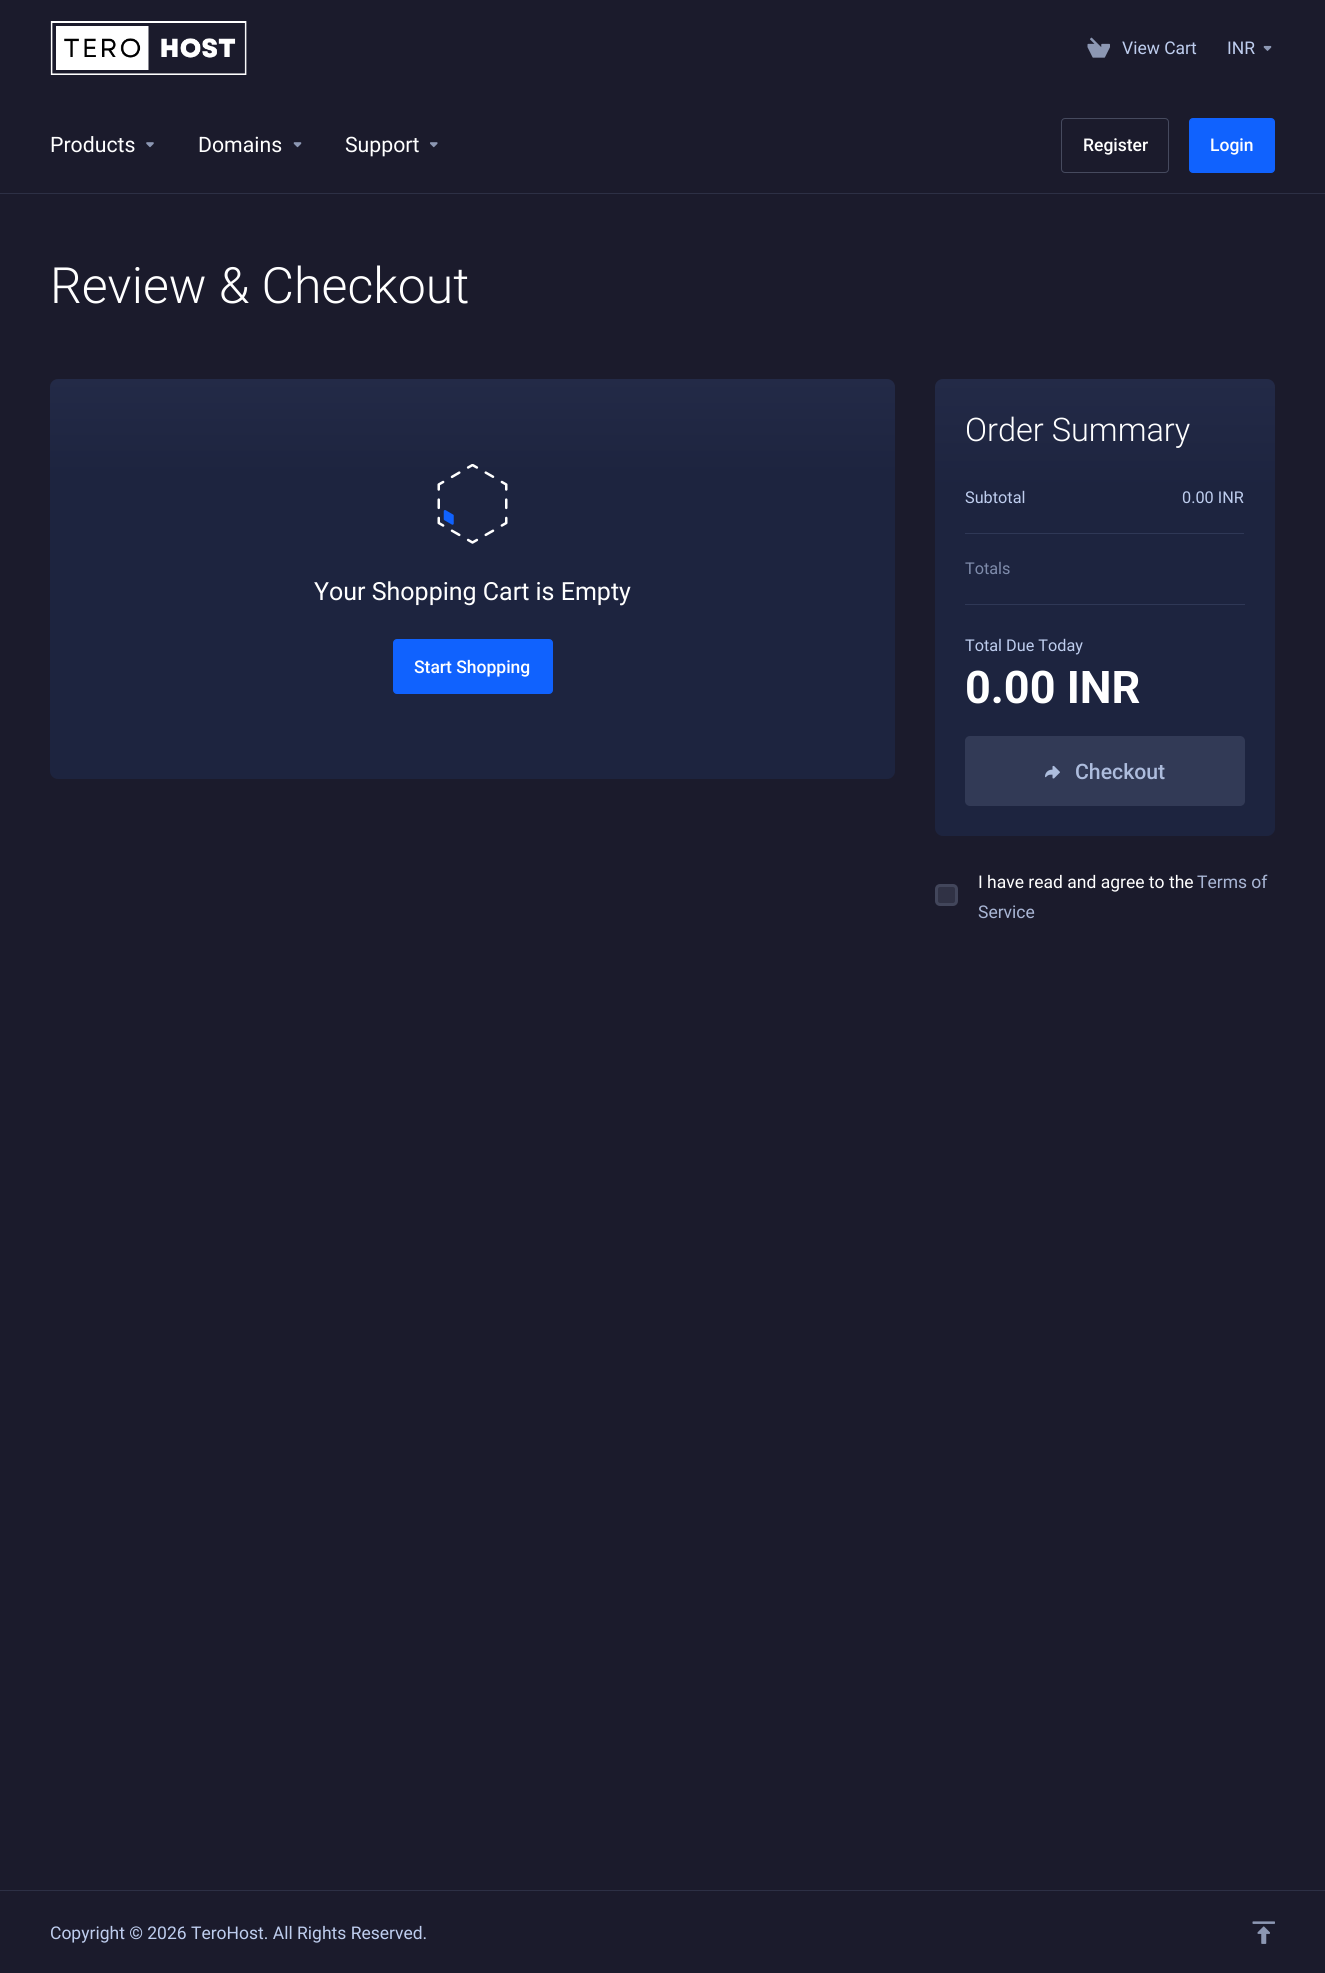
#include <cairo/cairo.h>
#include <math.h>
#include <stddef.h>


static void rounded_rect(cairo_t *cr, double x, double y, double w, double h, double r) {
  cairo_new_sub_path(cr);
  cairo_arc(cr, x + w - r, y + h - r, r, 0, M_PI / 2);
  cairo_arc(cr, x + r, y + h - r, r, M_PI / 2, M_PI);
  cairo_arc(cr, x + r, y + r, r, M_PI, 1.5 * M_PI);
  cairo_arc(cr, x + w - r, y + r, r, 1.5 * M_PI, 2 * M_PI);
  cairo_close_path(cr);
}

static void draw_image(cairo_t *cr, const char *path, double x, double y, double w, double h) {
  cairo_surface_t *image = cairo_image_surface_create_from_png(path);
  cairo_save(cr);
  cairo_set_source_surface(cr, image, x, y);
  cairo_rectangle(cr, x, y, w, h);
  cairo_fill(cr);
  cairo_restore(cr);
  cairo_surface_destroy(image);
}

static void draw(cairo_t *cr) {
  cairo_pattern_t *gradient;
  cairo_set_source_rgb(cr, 27 / 255.0, 27 / 255.0, 44 / 255.0);
  cairo_paint(cr);
  cairo_set_source_rgb(cr, 45 / 255.0, 48 / 255.0, 69 / 255.0);
  cairo_rectangle(cr, 0, 193, 1325, 1);
  cairo_fill(cr);
  draw_image(cr, "images/1.png", 50, 21, 197, 54);
  draw_image(cr, "images/2.png", 1087, 37, 23, 21);
  draw_image(cr, "images/3.png", 1263, 45, 9, 6);
  draw_image(cr, "images/4.png", 146, 142, 8, 6);
  draw_image(cr, "images/5.png", 293, 142, 9, 6);
  draw_image(cr, "images/6.png", 430, 142, 8, 6);
  rounded_rect(cr, 1061.5, 118.5, 107, 54, 3.5);
  cairo_set_source_rgba(cr, 204 / 255.0, 221 / 255.0, 1, 0.24);
  cairo_set_line_width(cr, 1);
  cairo_stroke(cr);
  cairo_set_source_rgb(cr, 16 / 255.0, 98 / 255.0, 254 / 255.0);
  rounded_rect(cr, 1189.5, 118.5, 85, 54, 3.5);
  cairo_fill_preserve(cr);
  cairo_stroke(cr);
  gradient = cairo_pattern_create_linear(473, 379, 473, 779);
  cairo_pattern_add_color_stop_rgba(gradient, 0, 35 / 255.0, 42 / 255.0, 71 / 255.0, 1);
  cairo_pattern_add_color_stop_rgba(gradient, 0.24, 29 / 255.0, 36 / 255.0, 63 / 255.0, 1);
  cairo_pattern_add_color_stop_rgba(gradient, 1, 29 / 255.0, 36 / 255.0, 63 / 255.0, 1);
  cairo_set_source(cr, gradient);
  cairo_pattern_destroy(gradient);
  rounded_rect(cr, 50, 379, 845, 400, 8);
  cairo_fill(cr);
  draw_image(cr, "images/7.png", 437, 464, 71, 80);
  cairo_set_source_rgb(cr, 16 / 255.0, 98 / 255.0, 254 / 255.0);
  rounded_rect(cr, 393.5, 639.5, 159, 54, 3.5);
  cairo_fill_preserve(cr);
  cairo_stroke(cr);
  gradient = cairo_pattern_create_linear(1105, 379, 1105, 836);
  cairo_pattern_add_color_stop_rgba(gradient, 0, 35 / 255.0, 42 / 255.0, 71 / 255.0, 1);
  cairo_pattern_add_color_stop_rgba(gradient, 0.24, 29 / 255.0, 36 / 255.0, 63 / 255.0, 1);
  cairo_pattern_add_color_stop_rgba(gradient, 1, 29 / 255.0, 36 / 255.0, 63 / 255.0, 1);
  cairo_set_source(cr, gradient);
  cairo_pattern_destroy(gradient);
  rounded_rect(cr, 935, 379, 340, 457, 8);
  cairo_fill(cr);
  cairo_set_source_rgb(cr, 47 / 255.0, 56 / 255.0, 86 / 255.0);
  cairo_rectangle(cr, 965, 533, 279, 1);
  cairo_fill(cr);
  cairo_rectangle(cr, 965, 604, 280, 1);
  cairo_fill(cr);
  cairo_set_source_rgb(cr, 50 / 255.0, 58 / 255.0, 86 / 255.0);
  rounded_rect(cr, 965, 736, 280, 70, 5);
  cairo_fill(cr);
  draw_image(cr, "images/8.png", 1045, 765, 15, 14);
  cairo_set_source_rgb(cr, 48 / 255.0, 50 / 255.0, 69 / 255.0);
  rounded_rect(cr, 935, 884, 23, 22, 5);
  cairo_fill(cr);
  rounded_rect(cr, 936.5, 885.5, 20, 19, 3.5);
  cairo_set_source_rgba(cr, 204 / 255.0, 221 / 255.0, 1, 0.12);
  cairo_set_line_width(cr, 3);
  cairo_stroke(cr);
  cairo_set_source_rgb(cr, 45 / 255.0, 48 / 255.0, 69 / 255.0);
  cairo_rectangle(cr, 0, 1890, 1325, 1);
  cairo_fill(cr);
  draw_image(cr, "images/9.png", 1252, 1921, 23, 23);
  cairo_select_font_face(cr, "Roboto", CAIRO_FONT_SLANT_NORMAL, CAIRO_FONT_WEIGHT_NORMAL);
  cairo_set_font_size(cr, 17.5);
  cairo_set_source_rgb(cr, 190 / 255.0, 205 / 255.0, 238 / 255.0);
  cairo_move_to(cr, 1122, 54);
  cairo_show_text(cr, "View Cart");
  cairo_move_to(cr, 1227, 54);
  cairo_show_text(cr, "INR");
  cairo_set_font_size(cr, 21.25);
  cairo_set_source_rgb(cr, 1, 1, 1);
  cairo_move_to(cr, 50, 152);
  cairo_show_text(cr, "Products");
  cairo_move_to(cr, 198, 152);
  cairo_show_text(cr, "Domains");
  cairo_move_to(cr, 345, 152);
  cairo_show_text(cr, "Support");
  cairo_select_font_face(cr, "Roboto Medium", CAIRO_FONT_SLANT_NORMAL, CAIRO_FONT_WEIGHT_NORMAL);
  cairo_set_font_size(cr, 17.5);
  cairo_move_to(cr, 1083, 151);
  cairo_show_text(cr, "Register");
  cairo_move_to(cr, 1210, 151);
  cairo_show_text(cr, "Login");
  cairo_select_font_face(cr, "Roboto Light", CAIRO_FONT_SLANT_NORMAL, CAIRO_FONT_WEIGHT_NORMAL);
  cairo_set_font_size(cr, 50);
  cairo_move_to(cr, 50, 303);
  cairo_show_text(cr, "Review & Checkout");
  cairo_select_font_face(cr, "Roboto", CAIRO_FONT_SLANT_NORMAL, CAIRO_FONT_WEIGHT_NORMAL);
  cairo_set_font_size(cr, 25);
  cairo_move_to(cr, 314, 600);
  cairo_show_text(cr, "Your Shopping Cart is Empty");
  cairo_select_font_face(cr, "Roboto Medium", CAIRO_FONT_SLANT_NORMAL, CAIRO_FONT_WEIGHT_NORMAL);
  cairo_set_font_size(cr, 17.5);
  cairo_move_to(cr, 414, 673);
  cairo_show_text(cr, "Start Shopping");
  cairo_select_font_face(cr, "Roboto Light", CAIRO_FONT_SLANT_NORMAL, CAIRO_FONT_WEIGHT_NORMAL);
  cairo_set_font_size(cr, 32.5);
  cairo_move_to(cr, 965, 441);
  cairo_show_text(cr, "Order Summary");
  cairo_select_font_face(cr, "Roboto", CAIRO_FONT_SLANT_NORMAL, CAIRO_FONT_WEIGHT_NORMAL);
  cairo_set_font_size(cr, 16.25);
  cairo_set_source_rgb(cr, 190 / 255.0, 205 / 255.0, 238 / 255.0);
  cairo_move_to(cr, 965, 503);
  cairo_show_text(cr, "Subtotal");
  cairo_move_to(cr, 1182, 503);
  cairo_show_text(cr, "0.00 INR");
  cairo_set_source_rgb(cr, 127 / 255.0, 140 / 255.0, 171 / 255.0);
  cairo_move_to(cr, 965, 574);
  cairo_show_text(cr, "Totals");
  cairo_set_source_rgb(cr, 190 / 255.0, 205 / 255.0, 238 / 255.0);
  cairo_move_to(cr, 965, 651);
  cairo_show_text(cr, "Total Due Today");
  cairo_select_font_face(cr, "Roboto", CAIRO_FONT_SLANT_NORMAL, CAIRO_FONT_WEIGHT_BOLD);
  cairo_set_font_size(cr, 45);
  cairo_set_source_rgb(cr, 1, 1, 1);
  cairo_move_to(cr, 965, 703);
  cairo_show_text(cr, "0.00 INR");
  cairo_select_font_face(cr, "Roboto Medium", CAIRO_FONT_SLANT_NORMAL, CAIRO_FONT_WEIGHT_NORMAL);
  cairo_set_font_size(cr, 21.25);
  cairo_set_source_rgb(cr, 173 / 255.0, 188 / 255.0, 221 / 255.0);
  cairo_move_to(cr, 1075, 779);
  cairo_show_text(cr, "Checkout");
  cairo_select_font_face(cr, "Roboto", CAIRO_FONT_SLANT_NORMAL, CAIRO_FONT_WEIGHT_NORMAL);
  cairo_set_font_size(cr, 17.5);
  cairo_set_source_rgb(cr, 1, 1, 1);
  cairo_move_to(cr, 978, 888);
  cairo_show_text(cr, "I have read and agree to the");
  cairo_set_source_rgb(cr, 169 / 255.0, 182 / 255.0, 213 / 255.0);
  cairo_move_to(cr, 1197, 888);
  cairo_show_text(cr, "Terms of");
  cairo_move_to(cr, 978, 918);
  cairo_show_text(cr, "Service");
  cairo_set_source_rgb(cr, 190 / 255.0, 205 / 255.0, 238 / 255.0);
  cairo_move_to(cr, 50, 1939);
  cairo_show_text(cr, "Copyright © 2026 TeroHost. All Rights Reserved.");
}

int main(void) {
  cairo_surface_t *surface = cairo_image_surface_create(CAIRO_FORMAT_RGB24, 1325, 1973);
  cairo_t *cr = cairo_create(surface);
  cairo_font_options_t *options = cairo_font_options_create();
  cairo_font_options_set_hint_metrics(options, CAIRO_HINT_METRICS_OFF);
  cairo_font_options_set_hint_style(options, CAIRO_HINT_STYLE_NONE);
  cairo_set_font_options(cr, options);
  cairo_set_miter_limit(cr, 4);
  draw(cr);
  cairo_surface_write_to_png(surface, "out.png");
  cairo_font_options_destroy(options);
  cairo_destroy(cr);
  cairo_surface_destroy(surface);
  return 0;
}
